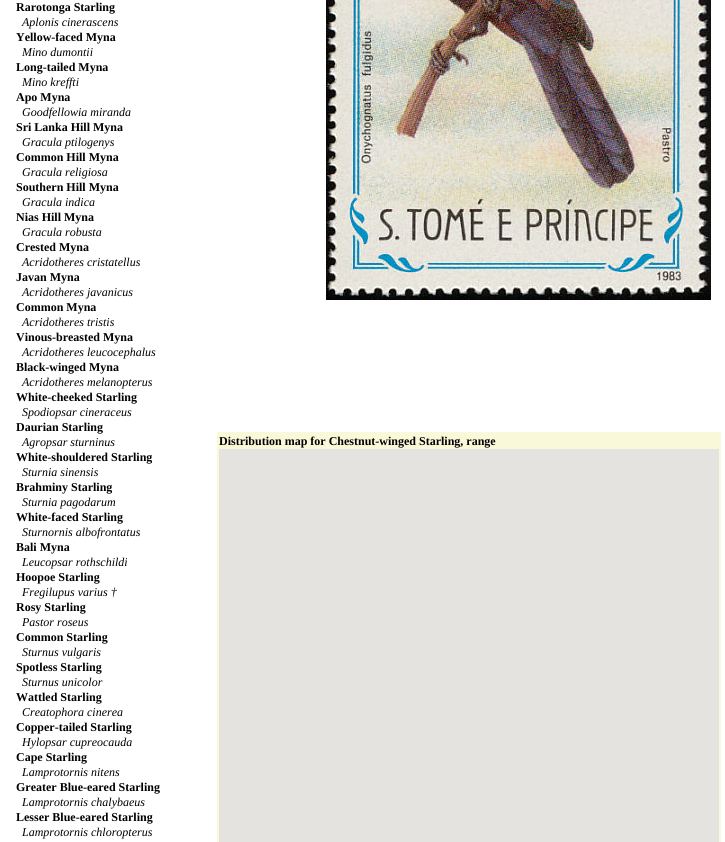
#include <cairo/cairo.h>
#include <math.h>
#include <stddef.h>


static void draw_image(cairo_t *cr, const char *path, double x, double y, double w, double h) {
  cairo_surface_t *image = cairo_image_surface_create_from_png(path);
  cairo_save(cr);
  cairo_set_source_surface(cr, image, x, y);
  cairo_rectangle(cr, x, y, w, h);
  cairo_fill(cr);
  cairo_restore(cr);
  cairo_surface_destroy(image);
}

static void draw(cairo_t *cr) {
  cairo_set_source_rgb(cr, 1, 1, 1);
  cairo_paint(cr);
  draw_image(cr, "images/1.png", 326, 0, 385, 300);
  cairo_set_source_rgb(cr, 249 / 255.0, 248 / 255.0, 217 / 255.0);
  cairo_rectangle(cr, 217, 432, 504, 410);
  cairo_fill(cr);
  cairo_set_source_rgb(cr, 229 / 255.0, 227 / 255.0, 223 / 255.0);
  cairo_rectangle(cr, 219, 449, 500, 393);
  cairo_fill(cr);
  cairo_select_font_face(cr, "Liberation Serif", CAIRO_FONT_SLANT_NORMAL, CAIRO_FONT_WEIGHT_BOLD);
  cairo_set_font_size(cr, 12);
  cairo_set_source_rgb(cr, 0, 0, 0);
  cairo_move_to(cr, 16, 11);
  cairo_show_text(cr, "Rarotonga Starling");
  cairo_select_font_face(cr, "Liberation Serif", CAIRO_FONT_SLANT_ITALIC, CAIRO_FONT_WEIGHT_NORMAL);
  cairo_move_to(cr, 22, 26);
  cairo_show_text(cr, "Aplonis cinerascens");
  cairo_select_font_face(cr, "Liberation Serif", CAIRO_FONT_SLANT_NORMAL, CAIRO_FONT_WEIGHT_BOLD);
  cairo_move_to(cr, 16, 41);
  cairo_show_text(cr, "Yellow-faced Myna");
  cairo_select_font_face(cr, "Liberation Serif", CAIRO_FONT_SLANT_ITALIC, CAIRO_FONT_WEIGHT_NORMAL);
  cairo_move_to(cr, 22, 56);
  cairo_show_text(cr, "Mino dumontii");
  cairo_select_font_face(cr, "Liberation Serif", CAIRO_FONT_SLANT_NORMAL, CAIRO_FONT_WEIGHT_BOLD);
  cairo_move_to(cr, 16, 71);
  cairo_show_text(cr, "Long-tailed Myna");
  cairo_select_font_face(cr, "Liberation Serif", CAIRO_FONT_SLANT_ITALIC, CAIRO_FONT_WEIGHT_NORMAL);
  cairo_move_to(cr, 22, 86);
  cairo_show_text(cr, "Mino kreffti");
  cairo_select_font_face(cr, "Liberation Serif", CAIRO_FONT_SLANT_NORMAL, CAIRO_FONT_WEIGHT_BOLD);
  cairo_move_to(cr, 16, 101);
  cairo_show_text(cr, "Apo Myna");
  cairo_select_font_face(cr, "Liberation Serif", CAIRO_FONT_SLANT_ITALIC, CAIRO_FONT_WEIGHT_NORMAL);
  cairo_move_to(cr, 22, 116);
  cairo_show_text(cr, "Goodfellowia miranda");
  cairo_select_font_face(cr, "Liberation Serif", CAIRO_FONT_SLANT_NORMAL, CAIRO_FONT_WEIGHT_BOLD);
  cairo_move_to(cr, 16, 131);
  cairo_show_text(cr, "Sri Lanka Hill Myna");
  cairo_select_font_face(cr, "Liberation Serif", CAIRO_FONT_SLANT_ITALIC, CAIRO_FONT_WEIGHT_NORMAL);
  cairo_move_to(cr, 22, 146);
  cairo_show_text(cr, "Gracula ptilogenys");
  cairo_select_font_face(cr, "Liberation Serif", CAIRO_FONT_SLANT_NORMAL, CAIRO_FONT_WEIGHT_BOLD);
  cairo_move_to(cr, 16, 161);
  cairo_show_text(cr, "Common Hill Myna");
  cairo_select_font_face(cr, "Liberation Serif", CAIRO_FONT_SLANT_ITALIC, CAIRO_FONT_WEIGHT_NORMAL);
  cairo_move_to(cr, 22, 176);
  cairo_show_text(cr, "Gracula religiosa");
  cairo_select_font_face(cr, "Liberation Serif", CAIRO_FONT_SLANT_NORMAL, CAIRO_FONT_WEIGHT_BOLD);
  cairo_move_to(cr, 16, 191);
  cairo_show_text(cr, "Southern Hill Myna");
  cairo_select_font_face(cr, "Liberation Serif", CAIRO_FONT_SLANT_ITALIC, CAIRO_FONT_WEIGHT_NORMAL);
  cairo_move_to(cr, 22, 206);
  cairo_show_text(cr, "Gracula indica");
  cairo_select_font_face(cr, "Liberation Serif", CAIRO_FONT_SLANT_NORMAL, CAIRO_FONT_WEIGHT_BOLD);
  cairo_move_to(cr, 16, 221);
  cairo_show_text(cr, "Nias Hill Myna");
  cairo_select_font_face(cr, "Liberation Serif", CAIRO_FONT_SLANT_ITALIC, CAIRO_FONT_WEIGHT_NORMAL);
  cairo_move_to(cr, 22, 236);
  cairo_show_text(cr, "Gracula robusta");
  cairo_select_font_face(cr, "Liberation Serif", CAIRO_FONT_SLANT_NORMAL, CAIRO_FONT_WEIGHT_BOLD);
  cairo_move_to(cr, 16, 251);
  cairo_show_text(cr, "Crested Myna");
  cairo_select_font_face(cr, "Liberation Serif", CAIRO_FONT_SLANT_ITALIC, CAIRO_FONT_WEIGHT_NORMAL);
  cairo_move_to(cr, 22, 266);
  cairo_show_text(cr, "Acridotheres cristatellus");
  cairo_select_font_face(cr, "Liberation Serif", CAIRO_FONT_SLANT_NORMAL, CAIRO_FONT_WEIGHT_BOLD);
  cairo_move_to(cr, 16, 281);
  cairo_show_text(cr, "Javan Myna");
  cairo_select_font_face(cr, "Liberation Serif", CAIRO_FONT_SLANT_ITALIC, CAIRO_FONT_WEIGHT_NORMAL);
  cairo_move_to(cr, 22, 296);
  cairo_show_text(cr, "Acridotheres javanicus");
  cairo_select_font_face(cr, "Liberation Serif", CAIRO_FONT_SLANT_NORMAL, CAIRO_FONT_WEIGHT_BOLD);
  cairo_move_to(cr, 16, 311);
  cairo_show_text(cr, "Common Myna");
  cairo_select_font_face(cr, "Liberation Serif", CAIRO_FONT_SLANT_ITALIC, CAIRO_FONT_WEIGHT_NORMAL);
  cairo_move_to(cr, 22, 326);
  cairo_show_text(cr, "Acridotheres tristis");
  cairo_select_font_face(cr, "Liberation Serif", CAIRO_FONT_SLANT_NORMAL, CAIRO_FONT_WEIGHT_BOLD);
  cairo_move_to(cr, 16, 341);
  cairo_show_text(cr, "Vinous-breasted Myna");
  cairo_select_font_face(cr, "Liberation Serif", CAIRO_FONT_SLANT_ITALIC, CAIRO_FONT_WEIGHT_NORMAL);
  cairo_move_to(cr, 22, 356);
  cairo_show_text(cr, "Acridotheres leucocephalus");
  cairo_select_font_face(cr, "Liberation Serif", CAIRO_FONT_SLANT_NORMAL, CAIRO_FONT_WEIGHT_BOLD);
  cairo_move_to(cr, 16, 371);
  cairo_show_text(cr, "Black-winged Myna");
  cairo_select_font_face(cr, "Liberation Serif", CAIRO_FONT_SLANT_ITALIC, CAIRO_FONT_WEIGHT_NORMAL);
  cairo_move_to(cr, 22, 386);
  cairo_show_text(cr, "Acridotheres melanopterus");
  cairo_select_font_face(cr, "Liberation Serif", CAIRO_FONT_SLANT_NORMAL, CAIRO_FONT_WEIGHT_BOLD);
  cairo_move_to(cr, 16, 401);
  cairo_show_text(cr, "White-cheeked Starling");
  cairo_select_font_face(cr, "Liberation Serif", CAIRO_FONT_SLANT_ITALIC, CAIRO_FONT_WEIGHT_NORMAL);
  cairo_move_to(cr, 22, 416);
  cairo_show_text(cr, "Spodiopsar cineraceus");
  cairo_select_font_face(cr, "Liberation Serif", CAIRO_FONT_SLANT_NORMAL, CAIRO_FONT_WEIGHT_BOLD);
  cairo_move_to(cr, 16, 431);
  cairo_show_text(cr, "Daurian Starling");
  cairo_select_font_face(cr, "Liberation Serif", CAIRO_FONT_SLANT_ITALIC, CAIRO_FONT_WEIGHT_NORMAL);
  cairo_move_to(cr, 22, 446);
  cairo_show_text(cr, "Agropsar sturninus");
  cairo_select_font_face(cr, "Liberation Serif", CAIRO_FONT_SLANT_NORMAL, CAIRO_FONT_WEIGHT_BOLD);
  cairo_move_to(cr, 16, 461);
  cairo_show_text(cr, "White-shouldered Starling");
  cairo_select_font_face(cr, "Liberation Serif", CAIRO_FONT_SLANT_ITALIC, CAIRO_FONT_WEIGHT_NORMAL);
  cairo_move_to(cr, 22, 476);
  cairo_show_text(cr, "Sturnia sinensis");
  cairo_select_font_face(cr, "Liberation Serif", CAIRO_FONT_SLANT_NORMAL, CAIRO_FONT_WEIGHT_BOLD);
  cairo_move_to(cr, 16, 491);
  cairo_show_text(cr, "Brahminy Starling");
  cairo_select_font_face(cr, "Liberation Serif", CAIRO_FONT_SLANT_ITALIC, CAIRO_FONT_WEIGHT_NORMAL);
  cairo_move_to(cr, 22, 506);
  cairo_show_text(cr, "Sturnia pagodarum");
  cairo_select_font_face(cr, "Liberation Serif", CAIRO_FONT_SLANT_NORMAL, CAIRO_FONT_WEIGHT_BOLD);
  cairo_move_to(cr, 16, 521);
  cairo_show_text(cr, "White-faced Starling");
  cairo_select_font_face(cr, "Liberation Serif", CAIRO_FONT_SLANT_ITALIC, CAIRO_FONT_WEIGHT_NORMAL);
  cairo_move_to(cr, 22, 536);
  cairo_show_text(cr, "Sturnornis albofrontatus");
  cairo_select_font_face(cr, "Liberation Serif", CAIRO_FONT_SLANT_NORMAL, CAIRO_FONT_WEIGHT_BOLD);
  cairo_move_to(cr, 16, 551);
  cairo_show_text(cr, "Bali Myna");
  cairo_select_font_face(cr, "Liberation Serif", CAIRO_FONT_SLANT_ITALIC, CAIRO_FONT_WEIGHT_NORMAL);
  cairo_move_to(cr, 22, 566);
  cairo_show_text(cr, "Leucopsar rothschildi");
  cairo_select_font_face(cr, "Liberation Serif", CAIRO_FONT_SLANT_NORMAL, CAIRO_FONT_WEIGHT_BOLD);
  cairo_move_to(cr, 16, 581);
  cairo_show_text(cr, "Hoopoe Starling");
  cairo_select_font_face(cr, "Liberation Serif", CAIRO_FONT_SLANT_ITALIC, CAIRO_FONT_WEIGHT_NORMAL);
  cairo_move_to(cr, 22, 596);
  cairo_show_text(cr, "Fregilupus varius †");
  cairo_select_font_face(cr, "Liberation Serif", CAIRO_FONT_SLANT_NORMAL, CAIRO_FONT_WEIGHT_BOLD);
  cairo_move_to(cr, 16, 611);
  cairo_show_text(cr, "Rosy Starling");
  cairo_select_font_face(cr, "Liberation Serif", CAIRO_FONT_SLANT_ITALIC, CAIRO_FONT_WEIGHT_NORMAL);
  cairo_move_to(cr, 22, 626);
  cairo_show_text(cr, "Pastor roseus");
  cairo_select_font_face(cr, "Liberation Serif", CAIRO_FONT_SLANT_NORMAL, CAIRO_FONT_WEIGHT_BOLD);
  cairo_move_to(cr, 16, 641);
  cairo_show_text(cr, "Common Starling");
  cairo_select_font_face(cr, "Liberation Serif", CAIRO_FONT_SLANT_ITALIC, CAIRO_FONT_WEIGHT_NORMAL);
  cairo_move_to(cr, 22, 656);
  cairo_show_text(cr, "Sturnus vulgaris");
  cairo_select_font_face(cr, "Liberation Serif", CAIRO_FONT_SLANT_NORMAL, CAIRO_FONT_WEIGHT_BOLD);
  cairo_move_to(cr, 16, 671);
  cairo_show_text(cr, "Spotless Starling");
  cairo_select_font_face(cr, "Liberation Serif", CAIRO_FONT_SLANT_ITALIC, CAIRO_FONT_WEIGHT_NORMAL);
  cairo_move_to(cr, 22, 686);
  cairo_show_text(cr, "Sturnus unicolor");
  cairo_select_font_face(cr, "Liberation Serif", CAIRO_FONT_SLANT_NORMAL, CAIRO_FONT_WEIGHT_BOLD);
  cairo_move_to(cr, 16, 701);
  cairo_show_text(cr, "Wattled Starling");
  cairo_select_font_face(cr, "Liberation Serif", CAIRO_FONT_SLANT_ITALIC, CAIRO_FONT_WEIGHT_NORMAL);
  cairo_move_to(cr, 22, 716);
  cairo_show_text(cr, "Creatophora cinerea");
  cairo_select_font_face(cr, "Liberation Serif", CAIRO_FONT_SLANT_NORMAL, CAIRO_FONT_WEIGHT_BOLD);
  cairo_move_to(cr, 16, 731);
  cairo_show_text(cr, "Copper-tailed Starling");
  cairo_select_font_face(cr, "Liberation Serif", CAIRO_FONT_SLANT_ITALIC, CAIRO_FONT_WEIGHT_NORMAL);
  cairo_move_to(cr, 22, 746);
  cairo_show_text(cr, "Hylopsar cupreocauda");
  cairo_select_font_face(cr, "Liberation Serif", CAIRO_FONT_SLANT_NORMAL, CAIRO_FONT_WEIGHT_BOLD);
  cairo_move_to(cr, 16, 761);
  cairo_show_text(cr, "Cape Starling");
  cairo_select_font_face(cr, "Liberation Serif", CAIRO_FONT_SLANT_ITALIC, CAIRO_FONT_WEIGHT_NORMAL);
  cairo_move_to(cr, 22, 776);
  cairo_show_text(cr, "Lamprotornis nitens");
  cairo_select_font_face(cr, "Liberation Serif", CAIRO_FONT_SLANT_NORMAL, CAIRO_FONT_WEIGHT_BOLD);
  cairo_move_to(cr, 16, 791);
  cairo_show_text(cr, "Greater Blue-eared Starling");
  cairo_select_font_face(cr, "Liberation Serif", CAIRO_FONT_SLANT_ITALIC, CAIRO_FONT_WEIGHT_NORMAL);
  cairo_move_to(cr, 22, 806);
  cairo_show_text(cr, "Lamprotornis chalybaeus");
  cairo_select_font_face(cr, "Liberation Serif", CAIRO_FONT_SLANT_NORMAL, CAIRO_FONT_WEIGHT_BOLD);
  cairo_move_to(cr, 16, 821);
  cairo_show_text(cr, "Lesser Blue-eared Starling");
  cairo_select_font_face(cr, "Liberation Serif", CAIRO_FONT_SLANT_ITALIC, CAIRO_FONT_WEIGHT_NORMAL);
  cairo_move_to(cr, 22, 836);
  cairo_show_text(cr, "Lamprotornis chloropterus");
  cairo_select_font_face(cr, "Liberation Serif", CAIRO_FONT_SLANT_NORMAL, CAIRO_FONT_WEIGHT_BOLD);
  cairo_move_to(cr, 219, 445);
  cairo_show_text(cr, "Distribution map for Chestnut-winged Starling, range");
}

int main(void) {
  cairo_surface_t *surface = cairo_image_surface_create(CAIRO_FORMAT_RGB24, 725, 842);
  cairo_t *cr = cairo_create(surface);
  cairo_font_options_t *options = cairo_font_options_create();
  cairo_font_options_set_hint_metrics(options, CAIRO_HINT_METRICS_OFF);
  cairo_font_options_set_hint_style(options, CAIRO_HINT_STYLE_NONE);
  cairo_set_font_options(cr, options);
  cairo_set_miter_limit(cr, 4);
  draw(cr);
  cairo_surface_write_to_png(surface, "out.png");
  cairo_font_options_destroy(options);
  cairo_destroy(cr);
  cairo_surface_destroy(surface);
  return 0;
}
